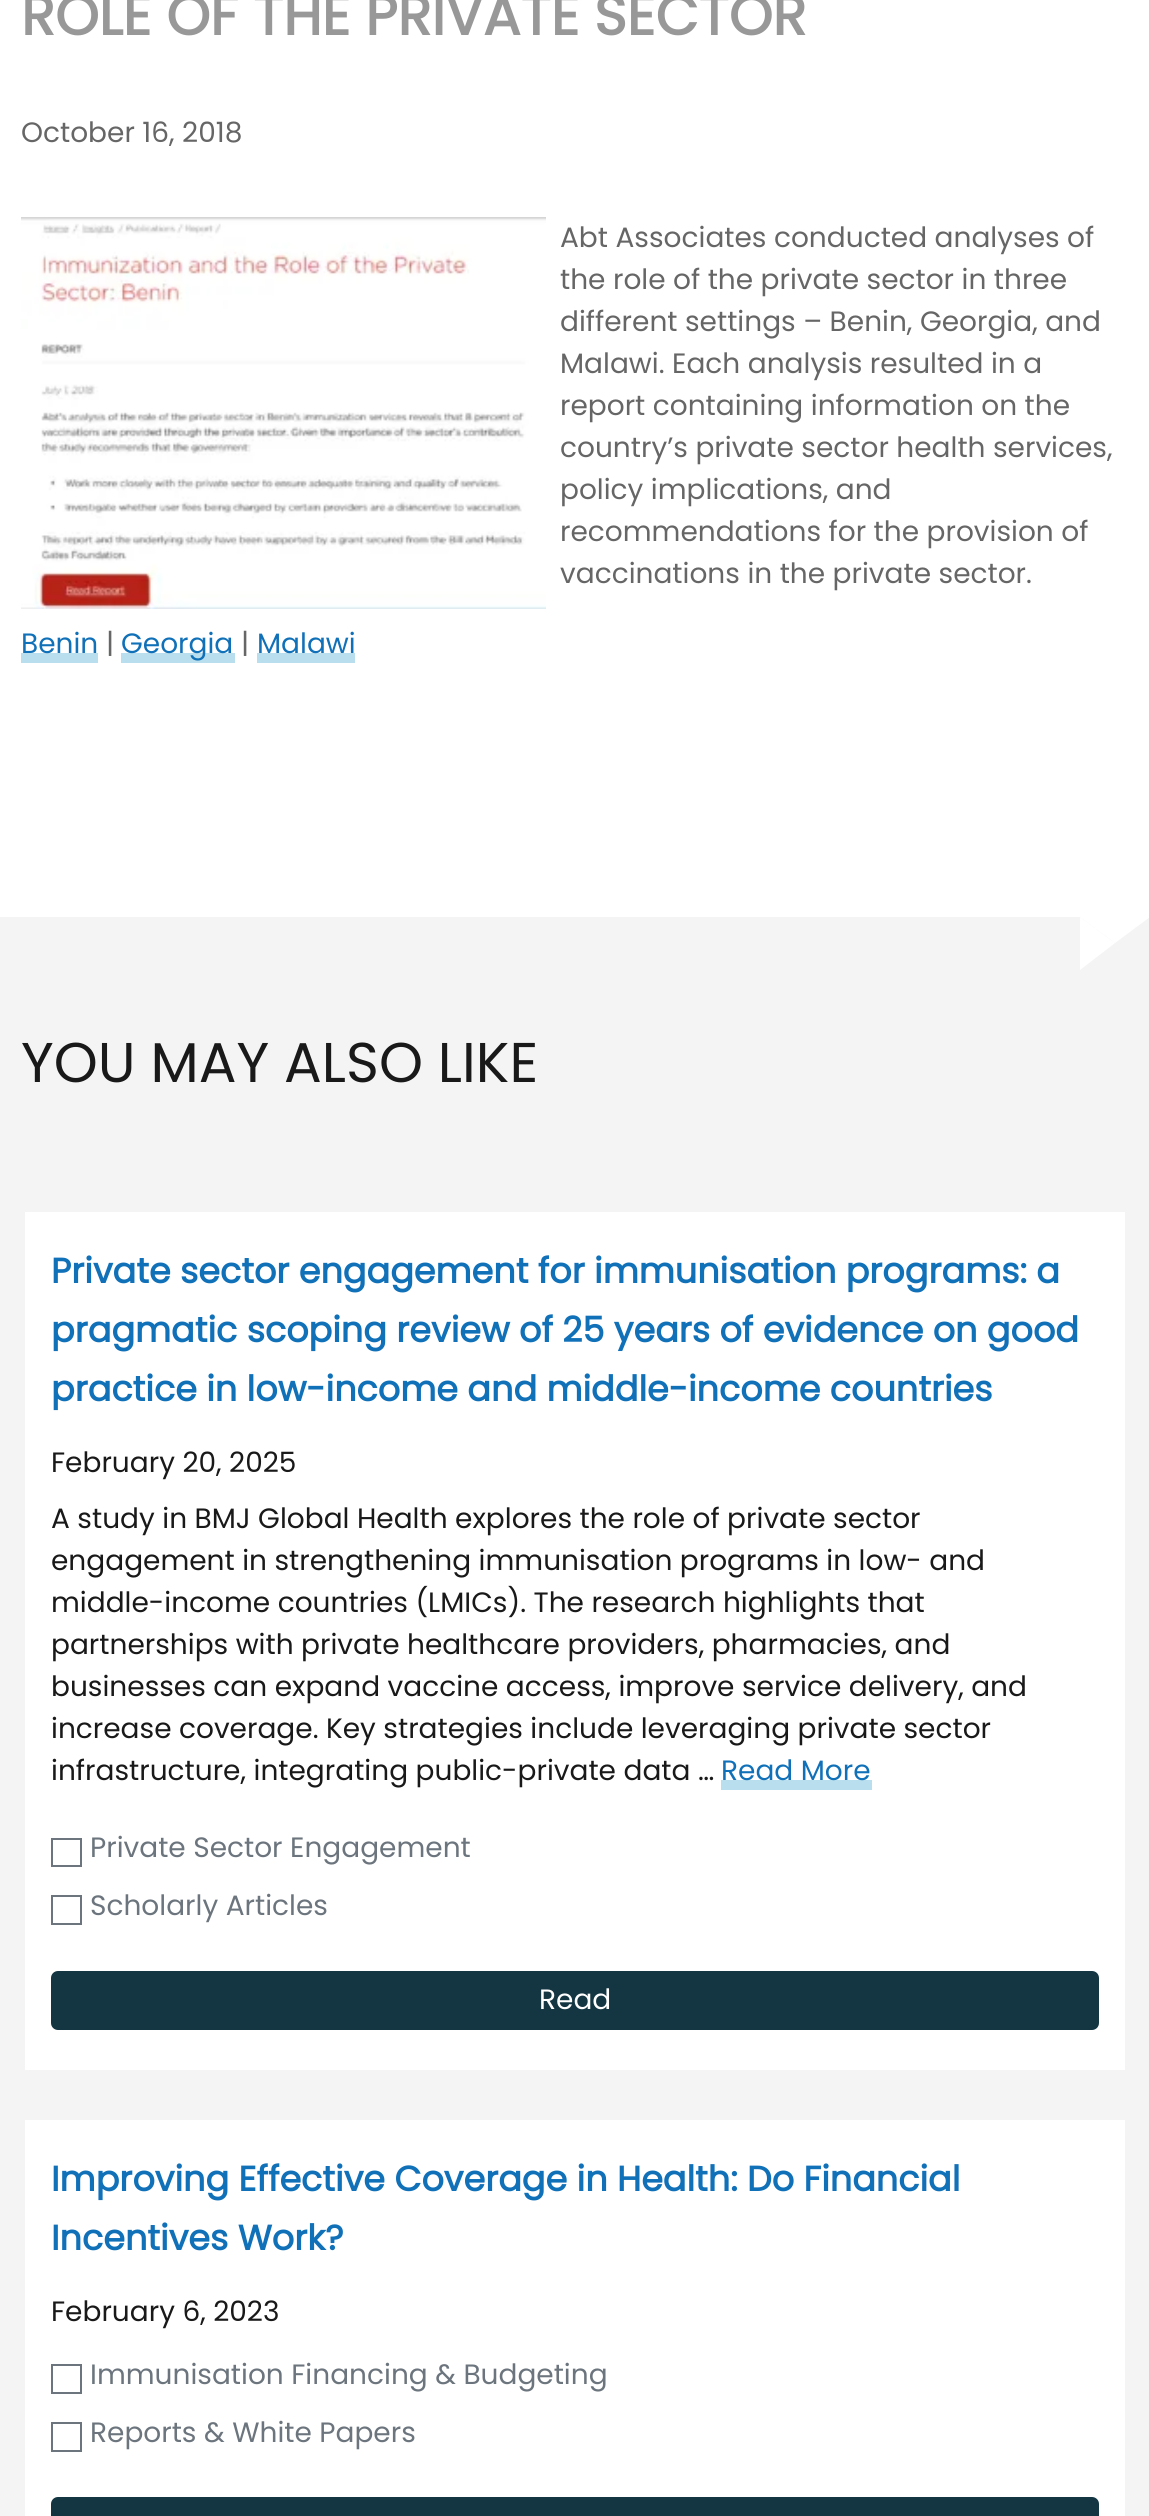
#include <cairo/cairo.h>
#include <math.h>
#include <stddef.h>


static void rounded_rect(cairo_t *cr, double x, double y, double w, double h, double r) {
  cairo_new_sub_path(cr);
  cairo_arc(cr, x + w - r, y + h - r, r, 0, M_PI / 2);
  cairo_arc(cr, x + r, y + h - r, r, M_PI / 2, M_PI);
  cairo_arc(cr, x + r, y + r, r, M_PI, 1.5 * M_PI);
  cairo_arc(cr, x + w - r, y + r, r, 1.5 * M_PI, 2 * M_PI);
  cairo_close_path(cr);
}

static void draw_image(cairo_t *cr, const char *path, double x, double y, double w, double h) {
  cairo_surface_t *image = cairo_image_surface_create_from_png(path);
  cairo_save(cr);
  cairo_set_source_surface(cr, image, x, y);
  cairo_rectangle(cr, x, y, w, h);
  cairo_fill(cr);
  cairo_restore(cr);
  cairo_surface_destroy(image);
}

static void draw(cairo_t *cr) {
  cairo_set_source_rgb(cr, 1, 1, 1);
  cairo_paint(cr);
  draw_image(cr, "images/1.png", 21, 217, 525, 392);
  cairo_set_source_rgb(cr, 185 / 255.0, 223 / 255.0, 239 / 255.0);
  cairo_rectangle(cr, 21, 653, 77, 10);
  cairo_fill(cr);
  cairo_rectangle(cr, 121, 653, 114, 10);
  cairo_fill(cr);
  cairo_rectangle(cr, 257, 653, 98, 10);
  cairo_fill(cr);
  cairo_set_source_rgb(cr, 244 / 255.0, 244 / 255.0, 244 / 255.0);
  cairo_rectangle(cr, 0, 917, 1149, 1599);
  cairo_fill(cr);
  cairo_set_source_rgb(cr, 1, 1, 1);
  cairo_new_path(cr);
  cairo_move_to(cr, 1080, 917);
  cairo_line_to(cr, 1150, 917);
  cairo_line_to(cr, 1115, 943);
  cairo_close_path(cr);
  cairo_fill(cr);
  cairo_new_path(cr);
  cairo_move_to(cr, 1080, 970);
  cairo_line_to(cr, 1080, 917);
  cairo_line_to(cr, 1115, 943);
  cairo_close_path(cr);
  cairo_fill(cr);
  cairo_rectangle(cr, 25, 1212, 1100, 858);
  cairo_fill(cr);
  cairo_set_source_rgb(cr, 185 / 255.0, 223 / 255.0, 239 / 255.0);
  cairo_rectangle(cr, 721, 1780, 151, 10);
  cairo_fill(cr);
  cairo_rectangle(cr, 52, 1839, 29, 27);
  cairo_set_source_rgb(cr, 108 / 255.0, 117 / 255.0, 125 / 255.0);
  cairo_stroke(cr);
  cairo_rectangle(cr, 52, 1896, 29, 28);
  cairo_stroke(cr);
  cairo_set_source_rgb(cr, 20 / 255.0, 54 / 255.0, 66 / 255.0);
  rounded_rect(cr, 51, 1971, 1048, 59, 7);
  cairo_fill(cr);
  cairo_set_source_rgb(cr, 1, 1, 1);
  cairo_rectangle(cr, 25, 2120, 1100, 396);
  cairo_fill(cr);
  cairo_rectangle(cr, 52, 2365, 29, 28);
  cairo_set_source_rgb(cr, 108 / 255.0, 117 / 255.0, 125 / 255.0);
  cairo_stroke(cr);
  cairo_rectangle(cr, 52, 2423, 29, 28);
  cairo_stroke(cr);
  cairo_set_source_rgb(cr, 20 / 255.0, 54 / 255.0, 66 / 255.0);
  rounded_rect(cr, 51, 2497, 1048, 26, 7);
  cairo_fill(cr);
  cairo_select_font_face(cr, "Poppins", CAIRO_FONT_SLANT_NORMAL, CAIRO_FONT_WEIGHT_BOLD);
  cairo_set_font_size(cr, 55.75);
  cairo_set_source_rgb(cr, 152 / 255.0, 152 / 255.0, 152 / 255.0);
  cairo_move_to(cr, 21, 35);
  cairo_show_text(cr, "ROLE OF THE PRIVATE SECTOR");
  cairo_select_font_face(cr, "Poppins", CAIRO_FONT_SLANT_NORMAL, CAIRO_FONT_WEIGHT_NORMAL);
  cairo_set_font_size(cr, 28);
  cairo_set_source_rgb(cr, 102 / 255.0, 102 / 255.0, 102 / 255.0);
  cairo_move_to(cr, 21, 142);
  cairo_show_text(cr, "October 16, 2018");
  cairo_move_to(cr, 560, 247);
  cairo_show_text(cr, "Abt Associates conducted analyses of");
  cairo_move_to(cr, 560, 289);
  cairo_show_text(cr, "the role of the private sector in three");
  cairo_move_to(cr, 560, 331);
  cairo_show_text(cr, "different settings – Benin, Georgia, and");
  cairo_move_to(cr, 560, 373);
  cairo_show_text(cr, "Malawi. Each analysis resulted in a");
  cairo_move_to(cr, 560, 415);
  cairo_show_text(cr, "report containing information on the");
  cairo_move_to(cr, 560, 457);
  cairo_show_text(cr, "country’s private sector health services,");
  cairo_move_to(cr, 560, 499);
  cairo_show_text(cr, "policy implications, and");
  cairo_move_to(cr, 560, 541);
  cairo_show_text(cr, "recommendations for the provision of");
  cairo_move_to(cr, 560, 583);
  cairo_show_text(cr, "vaccinations in the private sector.");
  cairo_set_source_rgb(cr, 16 / 255.0, 112 / 255.0, 184 / 255.0);
  cairo_move_to(cr, 21, 653);
  cairo_show_text(cr, "Benin");
  cairo_set_source_rgb(cr, 102 / 255.0, 102 / 255.0, 102 / 255.0);
  cairo_move_to(cr, 106, 653);
  cairo_show_text(cr, "|");
  cairo_set_source_rgb(cr, 16 / 255.0, 112 / 255.0, 184 / 255.0);
  cairo_move_to(cr, 121, 653);
  cairo_show_text(cr, "Georgia");
  cairo_set_source_rgb(cr, 102 / 255.0, 102 / 255.0, 102 / 255.0);
  cairo_move_to(cr, 241, 653);
  cairo_show_text(cr, "|");
  cairo_set_source_rgb(cr, 16 / 255.0, 112 / 255.0, 184 / 255.0);
  cairo_move_to(cr, 257, 653);
  cairo_show_text(cr, "Malawi");
  cairo_set_font_size(cr, 56);
  cairo_set_source_rgb(cr, 25 / 255.0, 25 / 255.0, 25 / 255.0);
  cairo_move_to(cr, 21, 1082);
  cairo_show_text(cr, "YOU MAY ALSO LIKE");
  cairo_select_font_face(cr, "Poppins", CAIRO_FONT_SLANT_NORMAL, CAIRO_FONT_WEIGHT_BOLD);
  cairo_set_font_size(cr, 35);
  cairo_set_source_rgb(cr, 16 / 255.0, 112 / 255.0, 184 / 255.0);
  cairo_move_to(cr, 51, 1283);
  cairo_show_text(cr, "Private sector engagement for immunisation programs: a");
  cairo_move_to(cr, 51, 1342);
  cairo_show_text(cr, "pragmatic scoping review of 25 years of evidence on good");
  cairo_move_to(cr, 51, 1401);
  cairo_show_text(cr, "practice in low-income and middle-income countries");
  cairo_select_font_face(cr, "Poppins", CAIRO_FONT_SLANT_NORMAL, CAIRO_FONT_WEIGHT_NORMAL);
  cairo_set_font_size(cr, 28);
  cairo_set_source_rgb(cr, 25 / 255.0, 25 / 255.0, 25 / 255.0);
  cairo_move_to(cr, 51, 1472);
  cairo_show_text(cr, "February 20, 2025");
  cairo_move_to(cr, 51, 1528);
  cairo_show_text(cr, "A study in BMJ Global Health explores the role of private sector");
  cairo_move_to(cr, 51, 1570);
  cairo_show_text(cr, "engagement in strengthening immunisation programs in low- and");
  cairo_move_to(cr, 51, 1612);
  cairo_show_text(cr, "middle-income countries (LMICs). The research highlights that");
  cairo_move_to(cr, 51, 1654);
  cairo_show_text(cr, "partnerships with private healthcare providers, pharmacies, and");
  cairo_move_to(cr, 51, 1696);
  cairo_show_text(cr, "businesses can expand vaccine access, improve service delivery, and");
  cairo_move_to(cr, 51, 1738);
  cairo_show_text(cr, "increase coverage. Key strategies include leveraging private sector");
  cairo_move_to(cr, 51, 1780);
  cairo_show_text(cr, "infrastructure, integrating public-private data …");
  cairo_set_source_rgb(cr, 16 / 255.0, 112 / 255.0, 184 / 255.0);
  cairo_move_to(cr, 721, 1780);
  cairo_show_text(cr, "Read More");
  cairo_set_source_rgb(cr, 108 / 255.0, 117 / 255.0, 125 / 255.0);
  cairo_move_to(cr, 90, 1857);
  cairo_show_text(cr, "Private Sector Engagement");
  cairo_move_to(cr, 90, 1915);
  cairo_show_text(cr, "Scholarly Articles");
  cairo_set_source_rgb(cr, 1, 1, 1);
  cairo_move_to(cr, 539, 2009);
  cairo_show_text(cr, "Read");
  cairo_select_font_face(cr, "Poppins", CAIRO_FONT_SLANT_NORMAL, CAIRO_FONT_WEIGHT_BOLD);
  cairo_set_font_size(cr, 35);
  cairo_set_source_rgb(cr, 16 / 255.0, 112 / 255.0, 184 / 255.0);
  cairo_move_to(cr, 51, 2191);
  cairo_show_text(cr, "Improving Effective Coverage in Health: Do Financial");
  cairo_move_to(cr, 51, 2250);
  cairo_show_text(cr, "Incentives Work?");
  cairo_select_font_face(cr, "Poppins", CAIRO_FONT_SLANT_NORMAL, CAIRO_FONT_WEIGHT_NORMAL);
  cairo_set_font_size(cr, 28);
  cairo_set_source_rgb(cr, 25 / 255.0, 25 / 255.0, 25 / 255.0);
  cairo_move_to(cr, 51, 2321);
  cairo_show_text(cr, "February 6, 2023");
  cairo_set_source_rgb(cr, 108 / 255.0, 117 / 255.0, 125 / 255.0);
  cairo_move_to(cr, 90, 2384);
  cairo_show_text(cr, "Immunisation Financing & Budgeting");
  cairo_move_to(cr, 90, 2442);
  cairo_show_text(cr, "Reports & White Papers");
}

int main(void) {
  cairo_surface_t *surface = cairo_image_surface_create(CAIRO_FORMAT_RGB24, 1149, 2516);
  cairo_t *cr = cairo_create(surface);
  cairo_font_options_t *options = cairo_font_options_create();
  cairo_font_options_set_hint_metrics(options, CAIRO_HINT_METRICS_OFF);
  cairo_font_options_set_hint_style(options, CAIRO_HINT_STYLE_NONE);
  cairo_set_font_options(cr, options);
  cairo_set_miter_limit(cr, 4);
  draw(cr);
  cairo_surface_write_to_png(surface, "out.png");
  cairo_font_options_destroy(options);
  cairo_destroy(cr);
  cairo_surface_destroy(surface);
  return 0;
}
